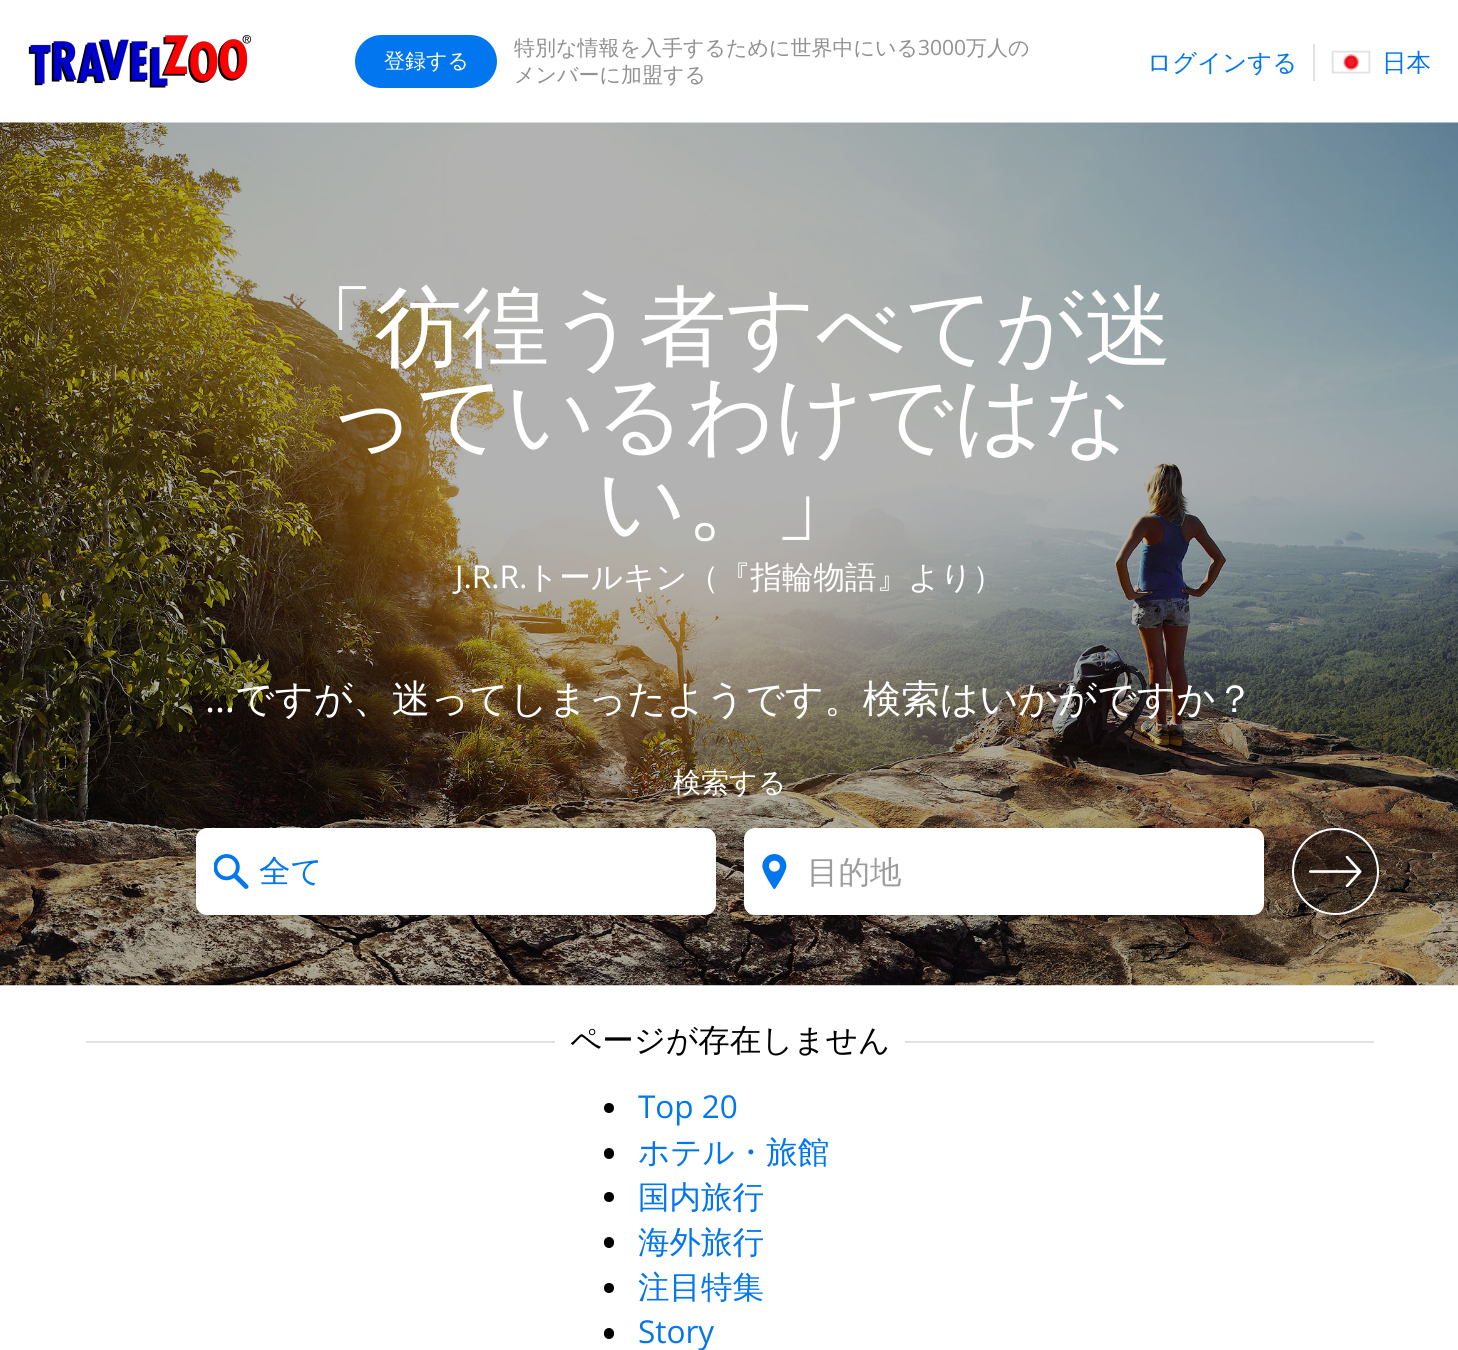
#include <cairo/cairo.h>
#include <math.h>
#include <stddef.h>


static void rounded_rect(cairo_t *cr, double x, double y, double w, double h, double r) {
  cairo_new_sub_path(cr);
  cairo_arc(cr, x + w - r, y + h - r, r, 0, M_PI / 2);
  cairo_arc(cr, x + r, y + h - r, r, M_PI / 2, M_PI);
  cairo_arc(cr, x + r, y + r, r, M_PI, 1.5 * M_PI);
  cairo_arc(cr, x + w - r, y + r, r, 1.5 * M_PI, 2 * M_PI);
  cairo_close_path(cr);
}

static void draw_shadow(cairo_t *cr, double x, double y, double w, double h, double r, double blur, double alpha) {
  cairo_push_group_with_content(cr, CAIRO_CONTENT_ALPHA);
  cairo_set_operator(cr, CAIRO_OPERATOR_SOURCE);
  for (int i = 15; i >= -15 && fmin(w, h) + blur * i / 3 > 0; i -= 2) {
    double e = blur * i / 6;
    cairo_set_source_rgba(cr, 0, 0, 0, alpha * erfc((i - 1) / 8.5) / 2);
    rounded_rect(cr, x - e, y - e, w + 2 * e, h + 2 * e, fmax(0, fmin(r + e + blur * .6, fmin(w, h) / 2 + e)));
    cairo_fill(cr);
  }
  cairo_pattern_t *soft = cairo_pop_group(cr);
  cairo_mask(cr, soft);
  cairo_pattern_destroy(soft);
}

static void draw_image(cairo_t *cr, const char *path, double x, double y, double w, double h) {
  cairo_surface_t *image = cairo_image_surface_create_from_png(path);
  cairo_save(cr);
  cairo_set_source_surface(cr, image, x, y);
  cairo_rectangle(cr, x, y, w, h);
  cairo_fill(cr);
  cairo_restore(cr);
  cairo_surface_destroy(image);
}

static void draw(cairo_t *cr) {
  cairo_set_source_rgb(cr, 1, 1, 1);
  cairo_paint(cr);
  draw_image(cr, "images/1.png", 28, 35, 224, 53);
  cairo_set_source_rgb(cr, 2 / 255.0, 118 / 255.0, 238 / 255.0);
  rounded_rect(cr, 355, 35, 142, 53, 26.5);
  cairo_fill(cr);
  cairo_set_source_rgb(cr, 225 / 255.0, 225 / 255.0, 225 / 255.0);
  cairo_rectangle(cr, 1313, 44, 2, 37);
  cairo_fill(cr);
  draw_image(cr, "images/2.png", 1331, 50, 40, 24);
  draw_image(cr, "images/3.png", 0, 122, 1458, 864);
  cairo_set_source_rgb(cr, 0, 0, 0);
  draw_shadow(cr, 196, 830, 520, 87, 11, 2, 0.15);
  cairo_set_source_rgb(cr, 1, 1, 1);
  rounded_rect(cr, 196, 828, 520, 87, 11);
  cairo_fill(cr);
  draw_image(cr, "images/4.png", 214, 854, 35, 35);
  cairo_set_source_rgb(cr, 0, 0, 0);
  draw_shadow(cr, 744, 830, 520, 87, 11, 2, 0.15);
  cairo_set_source_rgb(cr, 1, 1, 1);
  rounded_rect(cr, 744, 828, 520, 87, 11);
  cairo_fill(cr);
  draw_image(cr, "images/5.png", 762, 854, 25, 35);
  cairo_set_source_rgba(cr, 0, 0, 0, 0.25);
  cairo_arc(cr, 1335.5, 871.5, 42.5, 0, 2 * M_PI);
  cairo_fill_preserve(cr);
  cairo_set_source_rgb(cr, 1, 1, 1);
  cairo_stroke(cr);
  draw_image(cr, "images/6.png", 1309, 856, 53, 31);
  cairo_set_source_rgb(cr, 225 / 255.0, 225 / 255.0, 225 / 255.0);
  cairo_rectangle(cr, 86, 1041, 469, 2);
  cairo_fill(cr);
  cairo_rectangle(cr, 905, 1041, 469, 2);
  cairo_fill(cr);
  cairo_set_source_rgb(cr, 0, 0, 0);
  cairo_arc(cr, 609, 1108, 5, 0, 2 * M_PI);
  cairo_fill(cr);
  rounded_rect(cr, 604, 1148, 10, 11, 5);
  cairo_fill(cr);
  cairo_arc(cr, 609, 1197, 5, 0, 2 * M_PI);
  cairo_fill(cr);
  rounded_rect(cr, 604, 1237, 10, 11, 5);
  cairo_fill(cr);
  cairo_arc(cr, 609, 1288, 5, 0, 2 * M_PI);
  cairo_fill(cr);
  rounded_rect(cr, 604, 1328, 10, 11, 5);
  cairo_fill(cr);
  cairo_select_font_face(cr, "WenQuanYi Zen Hei Medium", CAIRO_FONT_SLANT_NORMAL, CAIRO_FONT_WEIGHT_NORMAL);
  cairo_set_font_size(cr, 21);
  cairo_set_source_rgb(cr, 1, 1, 1);
  cairo_move_to(cr, 384, 68);
  cairo_show_text(cr, "登録する");
  cairo_set_source_rgb(cr, 145 / 255.0, 145 / 255.0, 145 / 255.0);
  cairo_move_to(cr, 514, 55);
  cairo_show_text(cr, "特別な情報を入手するために世界中にいる");
  cairo_select_font_face(cr, "Open Sans", CAIRO_FONT_SLANT_NORMAL, CAIRO_FONT_WEIGHT_NORMAL);
  cairo_move_to(cr, 918, 55);
  cairo_show_text(cr, "3000");
  cairo_select_font_face(cr, "WenQuanYi Zen Hei Medium", CAIRO_FONT_SLANT_NORMAL, CAIRO_FONT_WEIGHT_NORMAL);
  cairo_move_to(cr, 966, 55);
  cairo_show_text(cr, "万人の");
  cairo_move_to(cr, 514, 82);
  cairo_show_text(cr, "メンバーに加盟する");
  cairo_set_font_size(cr, 24.5);
  cairo_set_source_rgb(cr, 2 / 255.0, 118 / 255.0, 238 / 255.0);
  cairo_move_to(cr, 1147, 71);
  cairo_show_text(cr, "ログインする");
  cairo_move_to(cr, 1382, 71);
  cairo_show_text(cr, "日本");
  cairo_set_font_size(cr, 87.5);
  cairo_set_source_rgb(cr, 1, 1, 1);
  cairo_move_to(cr, 287, 357);
  cairo_show_text(cr, "「彷徨う者すべてが迷");
  cairo_move_to(cr, 327, 445);
  cairo_show_text(cr, "っているわけではな");
  cairo_move_to(cr, 597, 532);
  cairo_show_text(cr, "い。」");
  cairo_select_font_face(cr, "Open Sans", CAIRO_FONT_SLANT_NORMAL, CAIRO_FONT_WEIGHT_NORMAL);
  cairo_set_font_size(cr, 31.5);
  cairo_move_to(cr, 455, 588);
  cairo_show_text(cr, "J.R.R.");
  cairo_select_font_face(cr, "WenQuanYi Zen Hei Medium", CAIRO_FONT_SLANT_NORMAL, CAIRO_FONT_WEIGHT_NORMAL);
  cairo_move_to(cr, 527, 588);
  cairo_show_text(cr, "トールキン（『指輪物語』より）");
  cairo_select_font_face(cr, "Open Sans", CAIRO_FONT_SLANT_NORMAL, CAIRO_FONT_WEIGHT_NORMAL);
  cairo_set_font_size(cr, 38.5);
  cairo_move_to(cr, 205, 712);
  cairo_show_text(cr, "…");
  cairo_select_font_face(cr, "WenQuanYi Zen Hei Medium", CAIRO_FONT_SLANT_NORMAL, CAIRO_FONT_WEIGHT_NORMAL);
  cairo_move_to(cr, 235, 712);
  cairo_show_text(cr, "ですが、迷ってしまったようです。検索はいかがですか？");
  cairo_set_font_size(cr, 28);
  cairo_move_to(cr, 673, 792);
  cairo_show_text(cr, "検索する");
  cairo_set_font_size(cr, 31.5);
  cairo_set_source_rgb(cr, 2 / 255.0, 118 / 255.0, 238 / 255.0);
  cairo_move_to(cr, 259, 882);
  cairo_show_text(cr, "全て");
  cairo_set_source_rgb(cr, 156 / 255.0, 156 / 255.0, 156 / 255.0);
  cairo_move_to(cr, 807, 883);
  cairo_show_text(cr, "目的地");
  cairo_set_source_rgb(cr, 0, 0, 0);
  cairo_move_to(cr, 570, 1051);
  cairo_show_text(cr, "ページが存在しません");
  cairo_select_font_face(cr, "Open Sans", CAIRO_FONT_SLANT_NORMAL, CAIRO_FONT_WEIGHT_NORMAL);
  cairo_set_source_rgb(cr, 2 / 255.0, 118 / 255.0, 238 / 255.0);
  cairo_move_to(cr, 638, 1118);
  cairo_show_text(cr, "Top 20");
  cairo_select_font_face(cr, "WenQuanYi Zen Hei Medium", CAIRO_FONT_SLANT_NORMAL, CAIRO_FONT_WEIGHT_NORMAL);
  cairo_move_to(cr, 638, 1163);
  cairo_show_text(cr, "ホテル・旅館");
  cairo_move_to(cr, 638, 1208);
  cairo_show_text(cr, "国内旅行");
  cairo_move_to(cr, 638, 1253);
  cairo_show_text(cr, "海外旅行");
  cairo_move_to(cr, 638, 1298);
  cairo_show_text(cr, "注目特集");
  cairo_select_font_face(cr, "Open Sans", CAIRO_FONT_SLANT_NORMAL, CAIRO_FONT_WEIGHT_NORMAL);
  cairo_move_to(cr, 638, 1343);
  cairo_show_text(cr, "Story");
}

int main(void) {
  cairo_surface_t *surface = cairo_image_surface_create(CAIRO_FORMAT_RGB24, 1458, 1350);
  cairo_t *cr = cairo_create(surface);
  cairo_font_options_t *options = cairo_font_options_create();
  cairo_font_options_set_hint_metrics(options, CAIRO_HINT_METRICS_OFF);
  cairo_font_options_set_hint_style(options, CAIRO_HINT_STYLE_NONE);
  cairo_set_font_options(cr, options);
  cairo_set_miter_limit(cr, 4);
  draw(cr);
  cairo_surface_write_to_png(surface, "out.png");
  cairo_font_options_destroy(options);
  cairo_destroy(cr);
  cairo_surface_destroy(surface);
  return 0;
}
